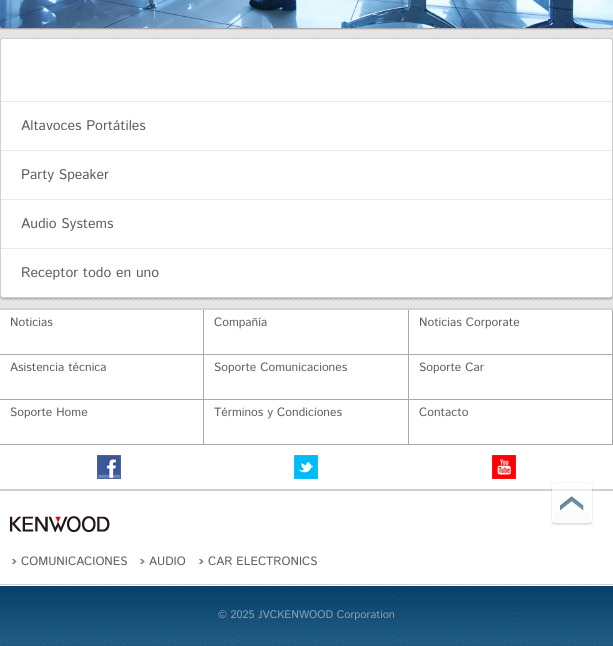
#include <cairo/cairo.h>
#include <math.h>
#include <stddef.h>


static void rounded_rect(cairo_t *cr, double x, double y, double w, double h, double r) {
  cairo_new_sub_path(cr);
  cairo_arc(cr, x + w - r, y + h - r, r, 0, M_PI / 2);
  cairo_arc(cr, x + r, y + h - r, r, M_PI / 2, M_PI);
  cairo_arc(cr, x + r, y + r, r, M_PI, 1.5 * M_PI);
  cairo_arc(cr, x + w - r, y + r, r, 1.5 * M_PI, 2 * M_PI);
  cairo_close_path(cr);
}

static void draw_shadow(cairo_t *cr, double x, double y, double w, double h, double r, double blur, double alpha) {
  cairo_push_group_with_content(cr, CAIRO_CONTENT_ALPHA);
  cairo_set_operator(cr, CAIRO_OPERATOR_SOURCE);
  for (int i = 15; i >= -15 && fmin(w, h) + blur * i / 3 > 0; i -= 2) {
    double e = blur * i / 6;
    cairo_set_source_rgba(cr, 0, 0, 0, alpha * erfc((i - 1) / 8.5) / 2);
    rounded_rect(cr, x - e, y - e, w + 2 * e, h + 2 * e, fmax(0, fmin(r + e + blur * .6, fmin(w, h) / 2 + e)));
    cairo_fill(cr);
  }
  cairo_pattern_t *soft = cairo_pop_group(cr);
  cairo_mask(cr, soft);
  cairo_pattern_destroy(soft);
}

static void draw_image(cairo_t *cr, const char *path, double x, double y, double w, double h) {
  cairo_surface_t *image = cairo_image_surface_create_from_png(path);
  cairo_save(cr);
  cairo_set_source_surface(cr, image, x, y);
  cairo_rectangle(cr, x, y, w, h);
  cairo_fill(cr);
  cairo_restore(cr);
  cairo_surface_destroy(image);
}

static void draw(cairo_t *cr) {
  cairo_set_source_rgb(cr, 1, 1, 1);
  cairo_paint(cr);
  draw_image(cr, "images/1.png", 0, 25, 613, 283);
  cairo_set_source_rgb(cr, 0, 0, 0);
  draw_shadow(cr, 0, -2, 613, 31, 0, 0.5, 0.3);
  draw_image(cr, "images/2.png", 0, 0, 613, 28);
  draw_shadow(cr, 0, 39, 613, 260, 3, 1, 0.3);
  cairo_set_source_rgb(cr, 1, 1, 1);
  rounded_rect(cr, 0.5, 38.5, 612, 259, 2.5);
  cairo_fill_preserve(cr);
  cairo_set_source_rgb(cr, 208 / 255.0, 208 / 255.0, 208 / 255.0);
  cairo_set_line_width(cr, 1);
  cairo_stroke(cr);
  cairo_set_source_rgb(cr, 233 / 255.0, 233 / 255.0, 233 / 255.0);
  cairo_rectangle(cr, 1, 101, 611, 1);
  cairo_fill(cr);
  cairo_rectangle(cr, 1, 150, 611, 1);
  cairo_fill(cr);
  cairo_rectangle(cr, 1, 199, 611, 1);
  cairo_fill(cr);
  cairo_rectangle(cr, 1, 248, 611, 1);
  cairo_fill(cr);
  cairo_set_source_rgb(cr, 211 / 255.0, 211 / 255.0, 211 / 255.0);
  cairo_rectangle(cr, 0, 308, 613, 2);
  cairo_fill(cr);
  cairo_rectangle(cr, 0, 489, 613, 1);
  cairo_fill(cr);
  cairo_set_source_rgb(cr, 170 / 255.0, 170 / 255.0, 170 / 255.0);
  cairo_rectangle(cr, 203, 310, 1, 135);
  cairo_fill(cr);
  cairo_rectangle(cr, 0, 354, 204, 1);
  cairo_fill(cr);
  cairo_rectangle(cr, 408, 310, 1, 135);
  cairo_fill(cr);
  cairo_rectangle(cr, 204, 354, 205, 1);
  cairo_fill(cr);
  cairo_rectangle(cr, 612, 310, 1, 135);
  cairo_fill(cr);
  cairo_rectangle(cr, 409, 354, 204, 1);
  cairo_fill(cr);
  cairo_rectangle(cr, 0, 399, 613, 1);
  cairo_fill(cr);
  cairo_rectangle(cr, 0, 444, 613, 1);
  cairo_fill(cr);
  draw_image(cr, "images/3.png", 97, 455, 24, 24);
  draw_image(cr, "images/4.png", 294, 455, 24, 24);
  draw_image(cr, "images/5.png", 492, 455, 24, 24);
  cairo_set_source_rgb(cr, 204 / 255.0, 204 / 255.0, 204 / 255.0);
  cairo_rectangle(cr, 0, 490, 613, 1);
  cairo_fill(cr);
  draw_image(cr, "images/6.png", 10, 516, 100, 16);
  draw_image(cr, "images/7.png", 12, 559, 5, 5);
  draw_image(cr, "images/8.png", 140, 559, 6, 5);
  draw_image(cr, "images/7.png", 199, 559, 5, 5);
  draw_image(cr, "images/9.png", 0, 584, 613, 62);
  draw_image(cr, "images/10.png", 551, 482, 42, 44);
  cairo_select_font_face(cr, "Istok Web", CAIRO_FONT_SLANT_NORMAL, CAIRO_FONT_WEIGHT_NORMAL);
  cairo_set_font_size(cr, 14);
  cairo_set_source_rgb(cr, 94 / 255.0, 94 / 255.0, 94 / 255.0);
  cairo_move_to(cr, 21, 130);
  cairo_show_text(cr, "Altavoces Portátiles");
  cairo_move_to(cr, 21, 179);
  cairo_show_text(cr, "Party Speaker");
  cairo_move_to(cr, 21, 228);
  cairo_show_text(cr, "Audio Systems");
  cairo_move_to(cr, 21, 277);
  cairo_show_text(cr, "Receptor todo en uno");
  cairo_set_font_size(cr, 12);
  cairo_move_to(cr, 10, 326);
  cairo_show_text(cr, "Noticias");
  cairo_move_to(cr, 214, 326);
  cairo_show_text(cr, "Compañía");
  cairo_move_to(cr, 419, 326);
  cairo_show_text(cr, "Noticias Corporate");
  cairo_move_to(cr, 10, 371);
  cairo_show_text(cr, "Asistencia técnica");
  cairo_move_to(cr, 214, 371);
  cairo_show_text(cr, "Soporte Comunicaciones");
  cairo_move_to(cr, 419, 371);
  cairo_show_text(cr, "Soporte Car");
  cairo_move_to(cr, 10, 416);
  cairo_show_text(cr, "Soporte Home");
  cairo_move_to(cr, 214, 416);
  cairo_show_text(cr, "Términos y Condiciones");
  cairo_move_to(cr, 419, 416);
  cairo_show_text(cr, "Contacto");
  cairo_move_to(cr, 21, 565);
  cairo_show_text(cr, "COMUNICACIONES");
  cairo_move_to(cr, 149, 565);
  cairo_show_text(cr, "AUDIO");
  cairo_move_to(cr, 208, 565);
  cairo_show_text(cr, "CAR ELECTRONICS");
  cairo_set_font_size(cr, 11);
  cairo_set_source_rgb(cr, 135 / 255.0, 164 / 255.0, 185 / 255.0);
  cairo_move_to(cr, 218, 618);
  cairo_show_text(cr, "© 2025 JVCKENWOOD Corporation");
}

int main(void) {
  cairo_surface_t *surface = cairo_image_surface_create(CAIRO_FORMAT_RGB24, 613, 646);
  cairo_t *cr = cairo_create(surface);
  cairo_font_options_t *options = cairo_font_options_create();
  cairo_font_options_set_hint_metrics(options, CAIRO_HINT_METRICS_OFF);
  cairo_font_options_set_hint_style(options, CAIRO_HINT_STYLE_NONE);
  cairo_set_font_options(cr, options);
  cairo_set_miter_limit(cr, 4);
  draw(cr);
  cairo_surface_write_to_png(surface, "out.png");
  cairo_font_options_destroy(options);
  cairo_destroy(cr);
  cairo_surface_destroy(surface);
  return 0;
}
